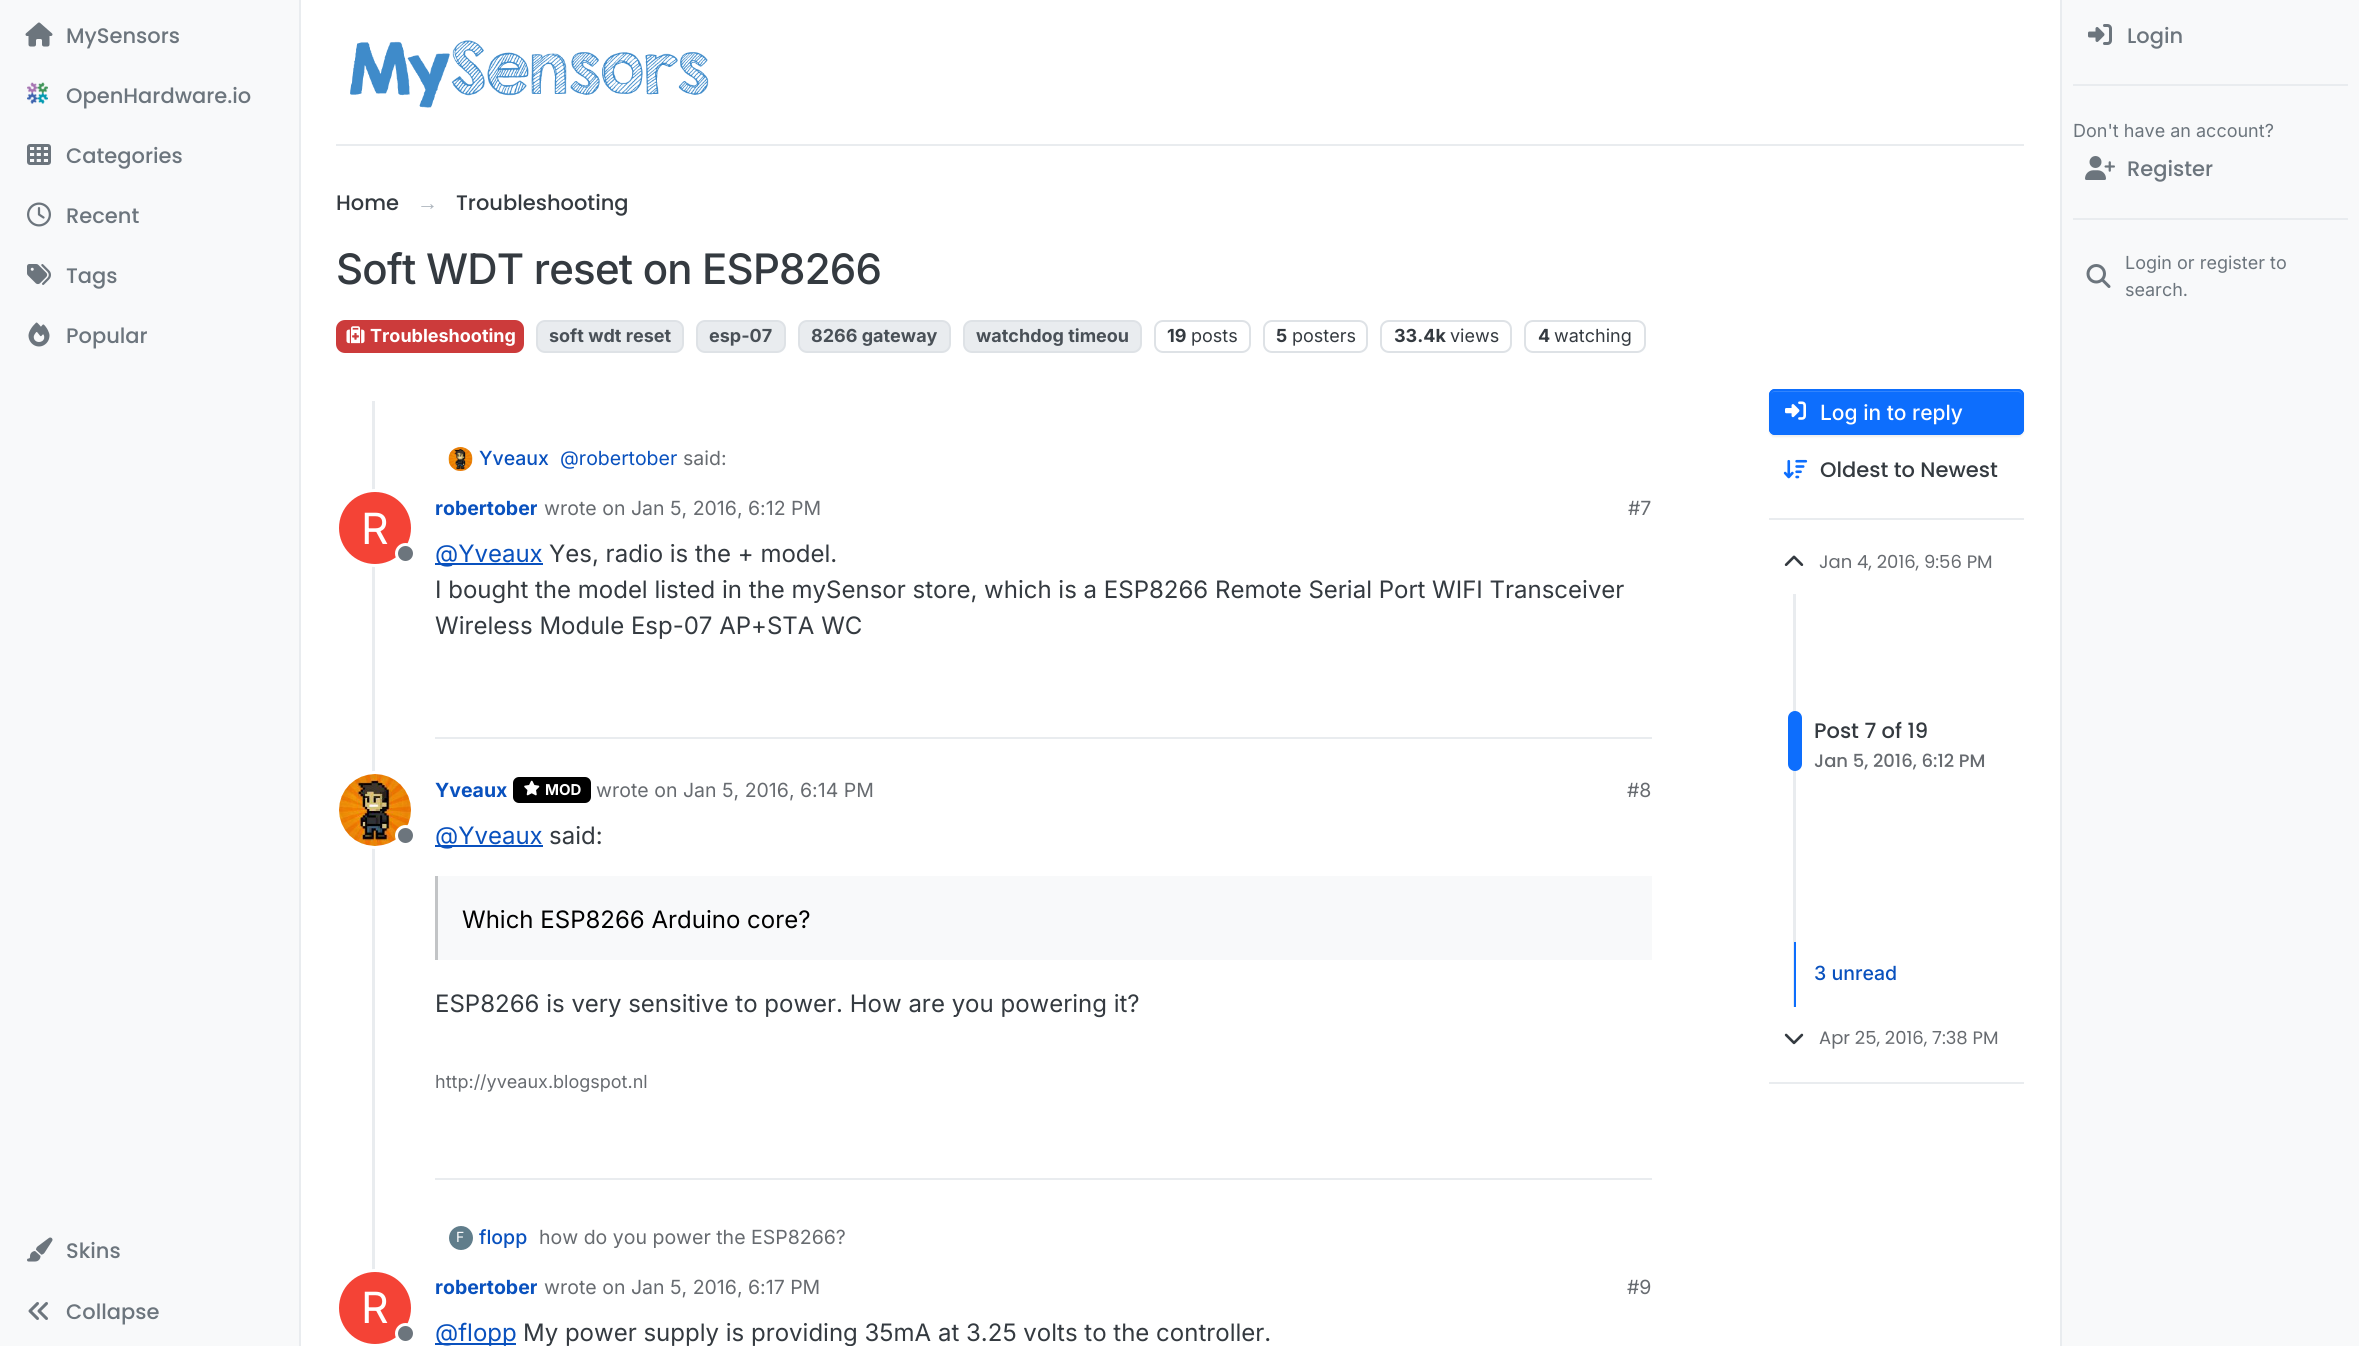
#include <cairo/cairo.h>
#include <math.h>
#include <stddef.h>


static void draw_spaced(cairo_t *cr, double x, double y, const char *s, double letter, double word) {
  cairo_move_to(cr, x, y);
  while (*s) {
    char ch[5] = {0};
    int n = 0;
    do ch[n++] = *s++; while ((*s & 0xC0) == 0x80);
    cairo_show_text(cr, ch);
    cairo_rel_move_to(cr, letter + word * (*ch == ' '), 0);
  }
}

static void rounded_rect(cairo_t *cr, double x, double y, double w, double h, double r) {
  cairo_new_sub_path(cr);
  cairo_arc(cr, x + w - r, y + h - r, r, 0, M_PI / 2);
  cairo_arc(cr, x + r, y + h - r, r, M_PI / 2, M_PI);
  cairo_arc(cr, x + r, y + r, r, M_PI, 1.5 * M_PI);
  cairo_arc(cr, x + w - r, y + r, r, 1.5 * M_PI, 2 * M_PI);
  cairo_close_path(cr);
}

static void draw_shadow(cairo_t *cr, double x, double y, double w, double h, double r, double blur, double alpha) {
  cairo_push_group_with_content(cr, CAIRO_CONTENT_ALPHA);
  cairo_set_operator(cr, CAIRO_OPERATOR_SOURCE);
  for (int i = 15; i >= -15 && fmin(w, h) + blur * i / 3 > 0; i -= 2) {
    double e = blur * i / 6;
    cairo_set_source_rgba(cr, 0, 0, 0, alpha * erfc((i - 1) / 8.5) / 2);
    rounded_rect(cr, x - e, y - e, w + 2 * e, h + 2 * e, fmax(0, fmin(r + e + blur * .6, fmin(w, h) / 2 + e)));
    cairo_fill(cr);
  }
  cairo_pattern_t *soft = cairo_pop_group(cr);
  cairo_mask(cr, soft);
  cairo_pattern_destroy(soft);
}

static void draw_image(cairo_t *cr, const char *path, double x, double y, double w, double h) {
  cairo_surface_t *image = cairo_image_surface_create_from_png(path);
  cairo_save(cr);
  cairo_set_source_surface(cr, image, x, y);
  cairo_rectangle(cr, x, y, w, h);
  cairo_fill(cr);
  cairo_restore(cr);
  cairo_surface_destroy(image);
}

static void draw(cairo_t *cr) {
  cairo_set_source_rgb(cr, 1, 1, 1);
  cairo_paint(cr);
  cairo_set_source_rgb(cr, 248 / 255.0, 249 / 255.0, 250 / 255.0);
  cairo_rectangle(cr, 0, 0, 299, 1346);
  cairo_fill(cr);
  cairo_set_source_rgb(cr, 233 / 255.0, 236 / 255.0, 239 / 255.0);
  cairo_rectangle(cr, 299, 0, 2, 1346);
  cairo_fill(cr);
  draw_image(cr, "images/1.png", 25, 22, 28, 25);
  draw_image(cr, "images/2.png", 27, 82, 21, 22);
  draw_image(cr, "images/3.png", 27, 144, 24, 21);
  draw_image(cr, "images/4.png", 27, 202, 24, 25);
  draw_image(cr, "images/5.png", 27, 264, 24, 21);
  draw_image(cr, "images/6.png", 28, 322, 22, 25);
  draw_image(cr, "images/7.png", 27, 1237, 26, 25);
  draw_image(cr, "images/8.png", 28, 1302, 20, 18);
  cairo_rectangle(cr, 336, 144, 1688, 2);
  cairo_fill(cr);
  draw_image(cr, "images/9.png", 350, 40, 359, 68);
  cairo_set_source_rgb(cr, 204 / 255.0, 59 / 255.0, 59 / 255.0);
  rounded_rect(cr, 337, 321, 186, 31, 8);
  cairo_fill_preserve(cr);
  cairo_stroke(cr);
  draw_image(cr, "images/10.png", 346, 326, 19, 18);
  cairo_set_source_rgb(cr, 233 / 255.0, 236 / 255.0, 239 / 255.0);
  rounded_rect(cr, 537, 321, 146, 31, 8);
  cairo_fill_preserve(cr);
  cairo_set_source_rgb(cr, 222 / 255.0, 226 / 255.0, 230 / 255.0);
  cairo_stroke(cr);
  cairo_set_source_rgb(cr, 233 / 255.0, 236 / 255.0, 239 / 255.0);
  rounded_rect(cr, 697, 321, 88, 31, 8);
  cairo_fill_preserve(cr);
  cairo_set_source_rgb(cr, 222 / 255.0, 226 / 255.0, 230 / 255.0);
  cairo_stroke(cr);
  cairo_set_source_rgb(cr, 233 / 255.0, 236 / 255.0, 239 / 255.0);
  rounded_rect(cr, 799, 321, 151, 31, 8);
  cairo_fill_preserve(cr);
  cairo_set_source_rgb(cr, 222 / 255.0, 226 / 255.0, 230 / 255.0);
  cairo_stroke(cr);
  cairo_set_source_rgb(cr, 233 / 255.0, 236 / 255.0, 239 / 255.0);
  rounded_rect(cr, 964, 321, 177, 31, 8);
  cairo_fill_preserve(cr);
  cairo_set_source_rgb(cr, 222 / 255.0, 226 / 255.0, 230 / 255.0);
  cairo_stroke(cr);
  rounded_rect(cr, 1155, 321, 95, 31, 8);
  cairo_stroke(cr);
  rounded_rect(cr, 1264, 321, 103, 31, 8);
  cairo_stroke(cr);
  rounded_rect(cr, 1381, 321, 130, 31, 8);
  cairo_stroke(cr);
  rounded_rect(cr, 1525, 321, 120, 31, 8);
  cairo_stroke(cr);
  cairo_set_source_rgb(cr, 233 / 255.0, 236 / 255.0, 239 / 255.0);
  cairo_rectangle(cr, 372, 401, 3, 945);
  cairo_fill(cr);
  draw_image(cr, "images/11.png", 448, 447, 25, 24);
  cairo_arc(cr, 375, 528, 37.5, 0, 2 * M_PI);
  cairo_set_source_rgb(cr, 1, 1, 1);
  cairo_set_line_width(cr, 3);
  cairo_stroke(cr);
  cairo_set_source_rgb(cr, 244 / 255.0, 67 / 255.0, 54 / 255.0);
  cairo_arc(cr, 375, 528, 36, 0, 2 * M_PI);
  cairo_fill(cr);
  cairo_set_source_rgb(cr, 108 / 255.0, 117 / 255.0, 125 / 255.0);
  cairo_arc(cr, 405.5, 553.5, 9, 0, 2 * M_PI);
  cairo_fill_preserve(cr);
  cairo_set_source_rgb(cr, 1, 1, 1);
  cairo_stroke(cr);
  cairo_set_source_rgb(cr, 9 / 255.0, 81 / 255.0, 190 / 255.0);
  cairo_rectangle(cr, 435, 563, 108, 2);
  cairo_fill(cr);
  cairo_set_source_rgb(cr, 233 / 255.0, 236 / 255.0, 239 / 255.0);
  cairo_rectangle(cr, 435, 737, 1217, 2);
  cairo_fill(cr);
  cairo_arc(cr, 375, 810, 37.5, 0, 2 * M_PI);
  cairo_set_source_rgb(cr, 1, 1, 1);
  cairo_stroke(cr);
  draw_image(cr, "images/12.png", 339, 774, 72, 72);
  cairo_set_source_rgb(cr, 108 / 255.0, 117 / 255.0, 125 / 255.0);
  cairo_arc(cr, 405.5, 835.5, 9, 0, 2 * M_PI);
  cairo_fill_preserve(cr);
  cairo_set_source_rgb(cr, 1, 1, 1);
  cairo_stroke(cr);
  cairo_set_source_rgb(cr, 0, 0, 0);
  rounded_rect(cr, 513, 777, 78, 26, 6);
  cairo_fill(cr);
  draw_image(cr, "images/13.png", 524, 780, 16, 16);
  cairo_set_source_rgb(cr, 9 / 255.0, 81 / 255.0, 190 / 255.0);
  cairo_rectangle(cr, 435, 845, 108, 2);
  cairo_fill(cr);
  cairo_set_source_rgb(cr, 248 / 255.0, 249 / 255.0, 250 / 255.0);
  cairo_rectangle(cr, 438, 876, 1214, 84);
  cairo_fill(cr);
  cairo_set_source_rgb(cr, 194 / 255.0, 196 / 255.0, 198 / 255.0);
  cairo_rectangle(cr, 435, 876, 3, 84);
  cairo_fill(cr);
  cairo_set_source_rgb(cr, 233 / 255.0, 236 / 255.0, 239 / 255.0);
  cairo_rectangle(cr, 435, 1178, 1217, 2);
  cairo_fill(cr);
  cairo_set_source_rgb(cr, 96 / 255.0, 125 / 255.0, 139 / 255.0);
  cairo_arc(cr, 461, 1238, 12, 0, 2 * M_PI);
  cairo_fill(cr);
  cairo_arc(cr, 375, 1308, 37.5, 0, 2 * M_PI);
  cairo_set_source_rgb(cr, 1, 1, 1);
  cairo_stroke(cr);
  cairo_set_source_rgb(cr, 244 / 255.0, 67 / 255.0, 54 / 255.0);
  cairo_arc(cr, 375, 1308, 36, 0, 2 * M_PI);
  cairo_fill(cr);
  cairo_set_source_rgb(cr, 108 / 255.0, 117 / 255.0, 125 / 255.0);
  cairo_arc(cr, 405.5, 1333.5, 9, 0, 2 * M_PI);
  cairo_fill_preserve(cr);
  cairo_set_source_rgb(cr, 1, 1, 1);
  cairo_stroke(cr);
  cairo_set_source_rgb(cr, 9 / 255.0, 81 / 255.0, 190 / 255.0);
  cairo_rectangle(cr, 435, 1343, 81, 2);
  cairo_fill(cr);
  cairo_set_source_rgb(cr, 0, 0, 0);
  draw_shadow(cr, 1769, 390, 255, 47, 6, 1, 0.07);
  cairo_set_source_rgb(cr, 13 / 255.0, 110 / 255.0, 253 / 255.0);
  rounded_rect(cr, 1769, 389, 255, 46, 6);
  cairo_fill(cr);
  cairo_set_source_rgb(cr, 49 / 255.0, 132 / 255.0, 253 / 255.0);
  cairo_new_path(cr);
  cairo_move_to(cr, 1774, 392);
  cairo_line_to(cr, 2018, 392);
  cairo_curve_to(cr, 2020, 392, 2022, 394, 2022, 396);
  cairo_line_to(cr, 2022, 395);
  cairo_curve_to(cr, 2022, 392, 2020, 390, 2017, 390);
  cairo_line_to(cr, 1775, 390);
  cairo_curve_to(cr, 1772, 390, 1770, 392, 1770, 395);
  cairo_line_to(cr, 1770, 396);
  cairo_curve_to(cr, 1770, 394, 1772, 392, 1774, 392);
  cairo_close_path(cr);
  cairo_fill(cr);
  rounded_rect(cr, 1770, 390, 253, 44, 5);
  cairo_set_source_rgb(cr, 13 / 255.0, 110 / 255.0, 253 / 255.0);
  cairo_set_line_width(cr, 2);
  cairo_stroke(cr);
  draw_image(cr, "images/14.png", 1785, 401, 21, 19);
  draw_image(cr, "images/15.png", 1783, 459, 25, 20);
  cairo_set_source_rgb(cr, 233 / 255.0, 236 / 255.0, 239 / 255.0);
  cairo_rectangle(cr, 1769, 518, 255, 2);
  cairo_fill(cr);
  draw_image(cr, "images/16.png", 1784, 555, 20, 11);
  cairo_rectangle(cr, 1793, 594, 3, 413);
  cairo_fill(cr);
  cairo_set_source_rgb(cr, 13 / 255.0, 110 / 255.0, 253 / 255.0);
  rounded_rect(cr, 1788, 711, 14, 60, 7);
  cairo_fill(cr);
  cairo_rectangle(cr, 1794, 942, 2, 65);
  cairo_fill(cr);
  draw_image(cr, "images/17.png", 1784, 1033, 20, 12);
  cairo_set_source_rgb(cr, 233 / 255.0, 236 / 255.0, 239 / 255.0);
  cairo_rectangle(cr, 1769, 1082, 255, 2);
  cairo_fill(cr);
  cairo_set_source_rgb(cr, 248 / 255.0, 249 / 255.0, 250 / 255.0);
  cairo_rectangle(cr, 2062, 0, 297, 1346);
  cairo_fill(cr);
  cairo_set_source_rgb(cr, 233 / 255.0, 236 / 255.0, 239 / 255.0);
  cairo_rectangle(cr, 2060, 0, 2, 1346);
  cairo_fill(cr);
  draw_image(cr, "images/18.png", 2088, 24, 24, 21);
  cairo_rectangle(cr, 2073, 84, 275, 2);
  cairo_fill(cr);
  draw_image(cr, "images/19.png", 2085, 156, 30, 24);
  cairo_rectangle(cr, 2073, 218, 275, 2);
  cairo_fill(cr);
  draw_image(cr, "images/20.png", 2086, 264, 25, 24);
  cairo_select_font_face(cr, "Poppins Medium", CAIRO_FONT_SLANT_NORMAL, CAIRO_FONT_WEIGHT_NORMAL);
  cairo_set_font_size(cr, 21);
  cairo_set_source_rgb(cr, 108 / 255.0, 117 / 255.0, 125 / 255.0);
  cairo_move_to(cr, 66, 43);
  cairo_show_text(cr, "MySensors");
  cairo_move_to(cr, 66, 103);
  cairo_show_text(cr, "OpenHardware.io");
  cairo_move_to(cr, 66, 163);
  cairo_show_text(cr, "Categories");
  cairo_move_to(cr, 66, 223);
  cairo_show_text(cr, "Recent");
  cairo_move_to(cr, 66, 283);
  cairo_show_text(cr, "Tags");
  cairo_move_to(cr, 66, 343);
  cairo_show_text(cr, "Popular");
  cairo_move_to(cr, 66, 1258);
  cairo_show_text(cr, "Skins");
  cairo_move_to(cr, 66, 1319);
  cairo_show_text(cr, "Collapse");
  cairo_set_source_rgb(cr, 52 / 255.0, 58 / 255.0, 64 / 255.0);
  cairo_move_to(cr, 336, 210);
  cairo_show_text(cr, "Home");
  cairo_select_font_face(cr, "Liberation Sans", CAIRO_FONT_SLANT_NORMAL, CAIRO_FONT_WEIGHT_NORMAL);
  cairo_set_source_rgb(cr, 173 / 255.0, 181 / 255.0, 189 / 255.0);
  cairo_move_to(cr, 417, 210);
  cairo_show_text(cr, "→");
  cairo_select_font_face(cr, "Poppins Medium", CAIRO_FONT_SLANT_NORMAL, CAIRO_FONT_WEIGHT_NORMAL);
  cairo_set_source_rgb(cr, 52 / 255.0, 58 / 255.0, 64 / 255.0);
  cairo_move_to(cr, 456, 210);
  cairo_show_text(cr, "Troubleshooting");
  cairo_select_font_face(cr, "Inter Medium", CAIRO_FONT_SLANT_NORMAL, CAIRO_FONT_WEIGHT_NORMAL);
  cairo_set_font_size(cr, 42);
  draw_spaced(cr, 336, 284, "Soft WDT reset on ESP8266", -0.8, 0);
  cairo_select_font_face(cr, "Inter", CAIRO_FONT_SLANT_NORMAL, CAIRO_FONT_WEIGHT_BOLD);
  cairo_set_font_size(cr, 18);
  cairo_set_source_rgb(cr, 1, 1, 1);
  cairo_move_to(cr, 370, 342);
  cairo_show_text(cr, "Troubleshooting");
  cairo_set_source_rgb(cr, 73 / 255.0, 80 / 255.0, 87 / 255.0);
  cairo_move_to(cr, 549, 342);
  cairo_show_text(cr, "soft wdt reset");
  cairo_move_to(cr, 709, 342);
  cairo_show_text(cr, "esp-07");
  cairo_move_to(cr, 811, 342);
  cairo_show_text(cr, "8266 gateway");
  cairo_move_to(cr, 976, 342);
  cairo_show_text(cr, "watchdog timeou");
  cairo_set_source_rgb(cr, 52 / 255.0, 58 / 255.0, 64 / 255.0);
  cairo_move_to(cr, 1167, 342);
  cairo_show_text(cr, "19");
  cairo_select_font_face(cr, "Inter", CAIRO_FONT_SLANT_NORMAL, CAIRO_FONT_WEIGHT_NORMAL);
  cairo_move_to(cr, 1191, 342);
  cairo_show_text(cr, "posts");
  cairo_select_font_face(cr, "Inter", CAIRO_FONT_SLANT_NORMAL, CAIRO_FONT_WEIGHT_BOLD);
  cairo_move_to(cr, 1276, 342);
  cairo_show_text(cr, "5");
  cairo_select_font_face(cr, "Inter", CAIRO_FONT_SLANT_NORMAL, CAIRO_FONT_WEIGHT_NORMAL);
  cairo_move_to(cr, 1292, 342);
  cairo_show_text(cr, "posters");
  cairo_select_font_face(cr, "Inter", CAIRO_FONT_SLANT_NORMAL, CAIRO_FONT_WEIGHT_BOLD);
  cairo_move_to(cr, 1394, 342);
  cairo_show_text(cr, "33.4k");
  cairo_select_font_face(cr, "Inter", CAIRO_FONT_SLANT_NORMAL, CAIRO_FONT_WEIGHT_NORMAL);
  cairo_move_to(cr, 1450, 342);
  cairo_show_text(cr, "views");
  cairo_select_font_face(cr, "Inter", CAIRO_FONT_SLANT_NORMAL, CAIRO_FONT_WEIGHT_BOLD);
  cairo_move_to(cr, 1538, 342);
  cairo_show_text(cr, "4");
  cairo_select_font_face(cr, "Inter", CAIRO_FONT_SLANT_NORMAL, CAIRO_FONT_WEIGHT_NORMAL);
  cairo_move_to(cr, 1554, 342);
  cairo_show_text(cr, "watching");
  cairo_select_font_face(cr, "Inter Medium", CAIRO_FONT_SLANT_NORMAL, CAIRO_FONT_WEIGHT_NORMAL);
  cairo_set_font_size(cr, 19.5);
  cairo_set_source_rgb(cr, 9 / 255.0, 81 / 255.0, 190 / 255.0);
  cairo_move_to(cr, 479, 465);
  cairo_show_text(cr, "Yveaux");
  cairo_select_font_face(cr, "Inter", CAIRO_FONT_SLANT_NORMAL, CAIRO_FONT_WEIGHT_NORMAL);
  cairo_move_to(cr, 560, 465);
  cairo_show_text(cr, "@robertober");
  cairo_set_source_rgb(cr, 103 / 255.0, 107 / 255.0, 112 / 255.0);
  cairo_move_to(cr, 683, 465);
  cairo_show_text(cr, "said:");
  cairo_set_font_size(cr, 43);
  cairo_set_source_rgb(cr, 1, 1, 1);
  cairo_move_to(cr, 361, 544);
  cairo_show_text(cr, "R");
  cairo_save(cr);
  cairo_rectangle(cr, 435, 492, 102, 30);
  cairo_clip(cr);
  cairo_select_font_face(cr, "Inter", CAIRO_FONT_SLANT_NORMAL, CAIRO_FONT_WEIGHT_BOLD);
  cairo_set_font_size(cr, 19.5);
  cairo_set_source_rgb(cr, 9 / 255.0, 81 / 255.0, 190 / 255.0);
  cairo_move_to(cr, 435, 515);
  cairo_show_text(cr, "robertober");
  cairo_restore(cr);
  cairo_set_font_size(cr, 19.5);
  cairo_set_source_rgb(cr, 103 / 255.0, 107 / 255.0, 112 / 255.0);
  cairo_move_to(cr, 544, 515);
  cairo_show_text(cr, "wrote on Jan 5, 2016, 6:12 PM");
  cairo_move_to(cr, 1628, 515);
  cairo_show_text(cr, "#7");
  cairo_set_font_size(cr, 24);
  cairo_set_source_rgb(cr, 9 / 255.0, 81 / 255.0, 190 / 255.0);
  cairo_move_to(cr, 435, 562);
  cairo_show_text(cr, "@Yveaux");
  cairo_set_source_rgb(cr, 52 / 255.0, 58 / 255.0, 64 / 255.0);
  cairo_move_to(cr, 549, 562);
  cairo_show_text(cr, "Yes, radio is the + model.");
  cairo_move_to(cr, 435, 598);
  cairo_show_text(cr, "I bought the model listed in the mySensor store, which is a ESP8266 Remote Serial Port WIFI Transceiver");
  cairo_move_to(cr, 435, 634);
  cairo_show_text(cr, "Wireless Module Esp-07 AP+STA WC");
  cairo_select_font_face(cr, "Inter", CAIRO_FONT_SLANT_NORMAL, CAIRO_FONT_WEIGHT_BOLD);
  cairo_set_font_size(cr, 19.5);
  cairo_set_source_rgb(cr, 9 / 255.0, 81 / 255.0, 190 / 255.0);
  cairo_move_to(cr, 435, 797);
  cairo_show_text(cr, "Yveaux");
  cairo_set_font_size(cr, 15);
  cairo_set_source_rgb(cr, 1, 1, 1);
  cairo_move_to(cr, 545, 795);
  cairo_show_text(cr, "MOD");
  cairo_select_font_face(cr, "Inter", CAIRO_FONT_SLANT_NORMAL, CAIRO_FONT_WEIGHT_NORMAL);
  cairo_set_font_size(cr, 19.5);
  cairo_set_source_rgb(cr, 103 / 255.0, 107 / 255.0, 112 / 255.0);
  cairo_move_to(cr, 596, 797);
  cairo_show_text(cr, "wrote on Jan 5, 2016, 6:14 PM");
  cairo_move_to(cr, 1627, 797);
  cairo_show_text(cr, "#8");
  cairo_set_font_size(cr, 24);
  cairo_set_source_rgb(cr, 9 / 255.0, 81 / 255.0, 190 / 255.0);
  cairo_move_to(cr, 435, 844);
  cairo_show_text(cr, "@Yveaux");
  cairo_set_source_rgb(cr, 52 / 255.0, 58 / 255.0, 64 / 255.0);
  cairo_move_to(cr, 549, 844);
  cairo_show_text(cr, "said:");
  cairo_set_source_rgb(cr, 0, 0, 0);
  cairo_move_to(cr, 462, 928);
  cairo_show_text(cr, "Which ESP8266 Arduino core?");
  cairo_set_source_rgb(cr, 52 / 255.0, 58 / 255.0, 64 / 255.0);
  cairo_move_to(cr, 435, 1012);
  cairo_show_text(cr, "ESP8266 is very sensitive to power. How are you powering it?");
  cairo_set_font_size(cr, 18);
  cairo_set_source_rgb(cr, 103 / 255.0, 107 / 255.0, 112 / 255.0);
  cairo_move_to(cr, 435, 1088);
  cairo_show_text(cr, "http://yveaux.blogspot.nl");
  cairo_set_font_size(cr, 14);
  cairo_set_source_rgb(cr, 1, 1, 1);
  cairo_move_to(cr, 456, 1242);
  cairo_show_text(cr, "F");
  cairo_select_font_face(cr, "Inter Medium", CAIRO_FONT_SLANT_NORMAL, CAIRO_FONT_WEIGHT_NORMAL);
  cairo_set_font_size(cr, 19.5);
  cairo_set_source_rgb(cr, 9 / 255.0, 81 / 255.0, 190 / 255.0);
  cairo_move_to(cr, 479, 1244);
  cairo_show_text(cr, "flopp");
  cairo_select_font_face(cr, "Inter", CAIRO_FONT_SLANT_NORMAL, CAIRO_FONT_WEIGHT_NORMAL);
  cairo_set_source_rgb(cr, 103 / 255.0, 107 / 255.0, 112 / 255.0);
  cairo_move_to(cr, 539, 1244);
  cairo_show_text(cr, "how do you power the ESP8266?");
  cairo_set_font_size(cr, 43);
  cairo_set_source_rgb(cr, 1, 1, 1);
  cairo_move_to(cr, 361, 1323);
  cairo_show_text(cr, "R");
  cairo_save(cr);
  cairo_rectangle(cr, 435, 1272, 102, 30);
  cairo_clip(cr);
  cairo_select_font_face(cr, "Inter", CAIRO_FONT_SLANT_NORMAL, CAIRO_FONT_WEIGHT_BOLD);
  cairo_set_font_size(cr, 19.5);
  cairo_set_source_rgb(cr, 9 / 255.0, 81 / 255.0, 190 / 255.0);
  cairo_move_to(cr, 435, 1294);
  cairo_show_text(cr, "robertober");
  cairo_restore(cr);
  cairo_set_font_size(cr, 19.5);
  cairo_set_source_rgb(cr, 103 / 255.0, 107 / 255.0, 112 / 255.0);
  cairo_move_to(cr, 544, 1294);
  cairo_show_text(cr, "wrote on Jan 5, 2016, 6:17 PM");
  cairo_move_to(cr, 1627, 1294);
  cairo_show_text(cr, "#9");
  cairo_set_font_size(cr, 24);
  cairo_set_source_rgb(cr, 9 / 255.0, 81 / 255.0, 190 / 255.0);
  cairo_move_to(cr, 435, 1341);
  cairo_show_text(cr, "@flopp");
  cairo_set_source_rgb(cr, 52 / 255.0, 58 / 255.0, 64 / 255.0);
  cairo_move_to(cr, 523, 1341);
  cairo_show_text(cr, "My power supply is providing 35mA at 3.25 volts to the controller.");
  cairo_select_font_face(cr, "Inter Medium", CAIRO_FONT_SLANT_NORMAL, CAIRO_FONT_WEIGHT_NORMAL);
  cairo_set_font_size(cr, 21);
  cairo_set_source_rgb(cr, 1, 1, 1);
  cairo_move_to(cr, 1820, 420);
  cairo_show_text(cr, "Log in to reply");
  cairo_select_font_face(cr, "Poppins Medium", CAIRO_FONT_SLANT_NORMAL, CAIRO_FONT_WEIGHT_NORMAL);
  cairo_set_source_rgb(cr, 52 / 255.0, 58 / 255.0, 64 / 255.0);
  cairo_move_to(cr, 1820, 477);
  cairo_show_text(cr, "Oldest to Newest");
  cairo_select_font_face(cr, "Poppins", CAIRO_FONT_SLANT_NORMAL, CAIRO_FONT_WEIGHT_NORMAL);
  cairo_set_font_size(cr, 18);
  cairo_set_source_rgb(cr, 103 / 255.0, 107 / 255.0, 112 / 255.0);
  cairo_move_to(cr, 1819, 568);
  cairo_show_text(cr, "Jan 4, 2016, 9:56 PM");
  cairo_select_font_face(cr, "Poppins Medium", CAIRO_FONT_SLANT_NORMAL, CAIRO_FONT_WEIGHT_NORMAL);
  cairo_set_font_size(cr, 21);
  cairo_set_source_rgb(cr, 52 / 255.0, 58 / 255.0, 64 / 255.0);
  cairo_move_to(cr, 1814, 738);
  cairo_show_text(cr, "Post 7 of 19");
  cairo_set_font_size(cr, 18);
  cairo_set_source_rgb(cr, 103 / 255.0, 107 / 255.0, 112 / 255.0);
  cairo_move_to(cr, 1814, 767);
  cairo_show_text(cr, "Jan 5, 2016, 6:12 PM");
  cairo_select_font_face(cr, "Inter Medium", CAIRO_FONT_SLANT_NORMAL, CAIRO_FONT_WEIGHT_NORMAL);
  cairo_set_font_size(cr, 19.5);
  cairo_set_source_rgb(cr, 9 / 255.0, 81 / 255.0, 190 / 255.0);
  cairo_move_to(cr, 1814, 980);
  cairo_show_text(cr, "3 unread");
  cairo_select_font_face(cr, "Poppins", CAIRO_FONT_SLANT_NORMAL, CAIRO_FONT_WEIGHT_NORMAL);
  cairo_set_font_size(cr, 18);
  cairo_set_source_rgb(cr, 103 / 255.0, 107 / 255.0, 112 / 255.0);
  cairo_move_to(cr, 1819, 1044);
  cairo_show_text(cr, "Apr 25, 2016, 7:38 PM");
  cairo_select_font_face(cr, "Poppins Medium", CAIRO_FONT_SLANT_NORMAL, CAIRO_FONT_WEIGHT_NORMAL);
  cairo_set_font_size(cr, 21);
  cairo_set_source_rgb(cr, 108 / 255.0, 117 / 255.0, 125 / 255.0);
  cairo_move_to(cr, 2127, 43);
  cairo_show_text(cr, "Login");
  cairo_select_font_face(cr, "Inter", CAIRO_FONT_SLANT_NORMAL, CAIRO_FONT_WEIGHT_NORMAL);
  cairo_set_font_size(cr, 18);
  cairo_move_to(cr, 2073, 137);
  cairo_show_text(cr, "Don't have an account?");
  cairo_select_font_face(cr, "Poppins Medium", CAIRO_FONT_SLANT_NORMAL, CAIRO_FONT_WEIGHT_NORMAL);
  cairo_set_font_size(cr, 21);
  cairo_move_to(cr, 2127, 176);
  cairo_show_text(cr, "Register");
  cairo_select_font_face(cr, "Inter", CAIRO_FONT_SLANT_NORMAL, CAIRO_FONT_WEIGHT_NORMAL);
  cairo_set_font_size(cr, 18);
  cairo_move_to(cr, 2125, 269);
  cairo_show_text(cr, "Login or register to");
  cairo_move_to(cr, 2125, 296);
  cairo_show_text(cr, "search.");
}

int main(void) {
  cairo_surface_t *surface = cairo_image_surface_create(CAIRO_FORMAT_RGB24, 2359, 1346);
  cairo_t *cr = cairo_create(surface);
  cairo_font_options_t *options = cairo_font_options_create();
  cairo_font_options_set_hint_metrics(options, CAIRO_HINT_METRICS_OFF);
  cairo_font_options_set_hint_style(options, CAIRO_HINT_STYLE_NONE);
  cairo_set_font_options(cr, options);
  cairo_set_miter_limit(cr, 4);
  draw(cr);
  cairo_surface_write_to_png(surface, "out.png");
  cairo_font_options_destroy(options);
  cairo_destroy(cr);
  cairo_surface_destroy(surface);
  return 0;
}
